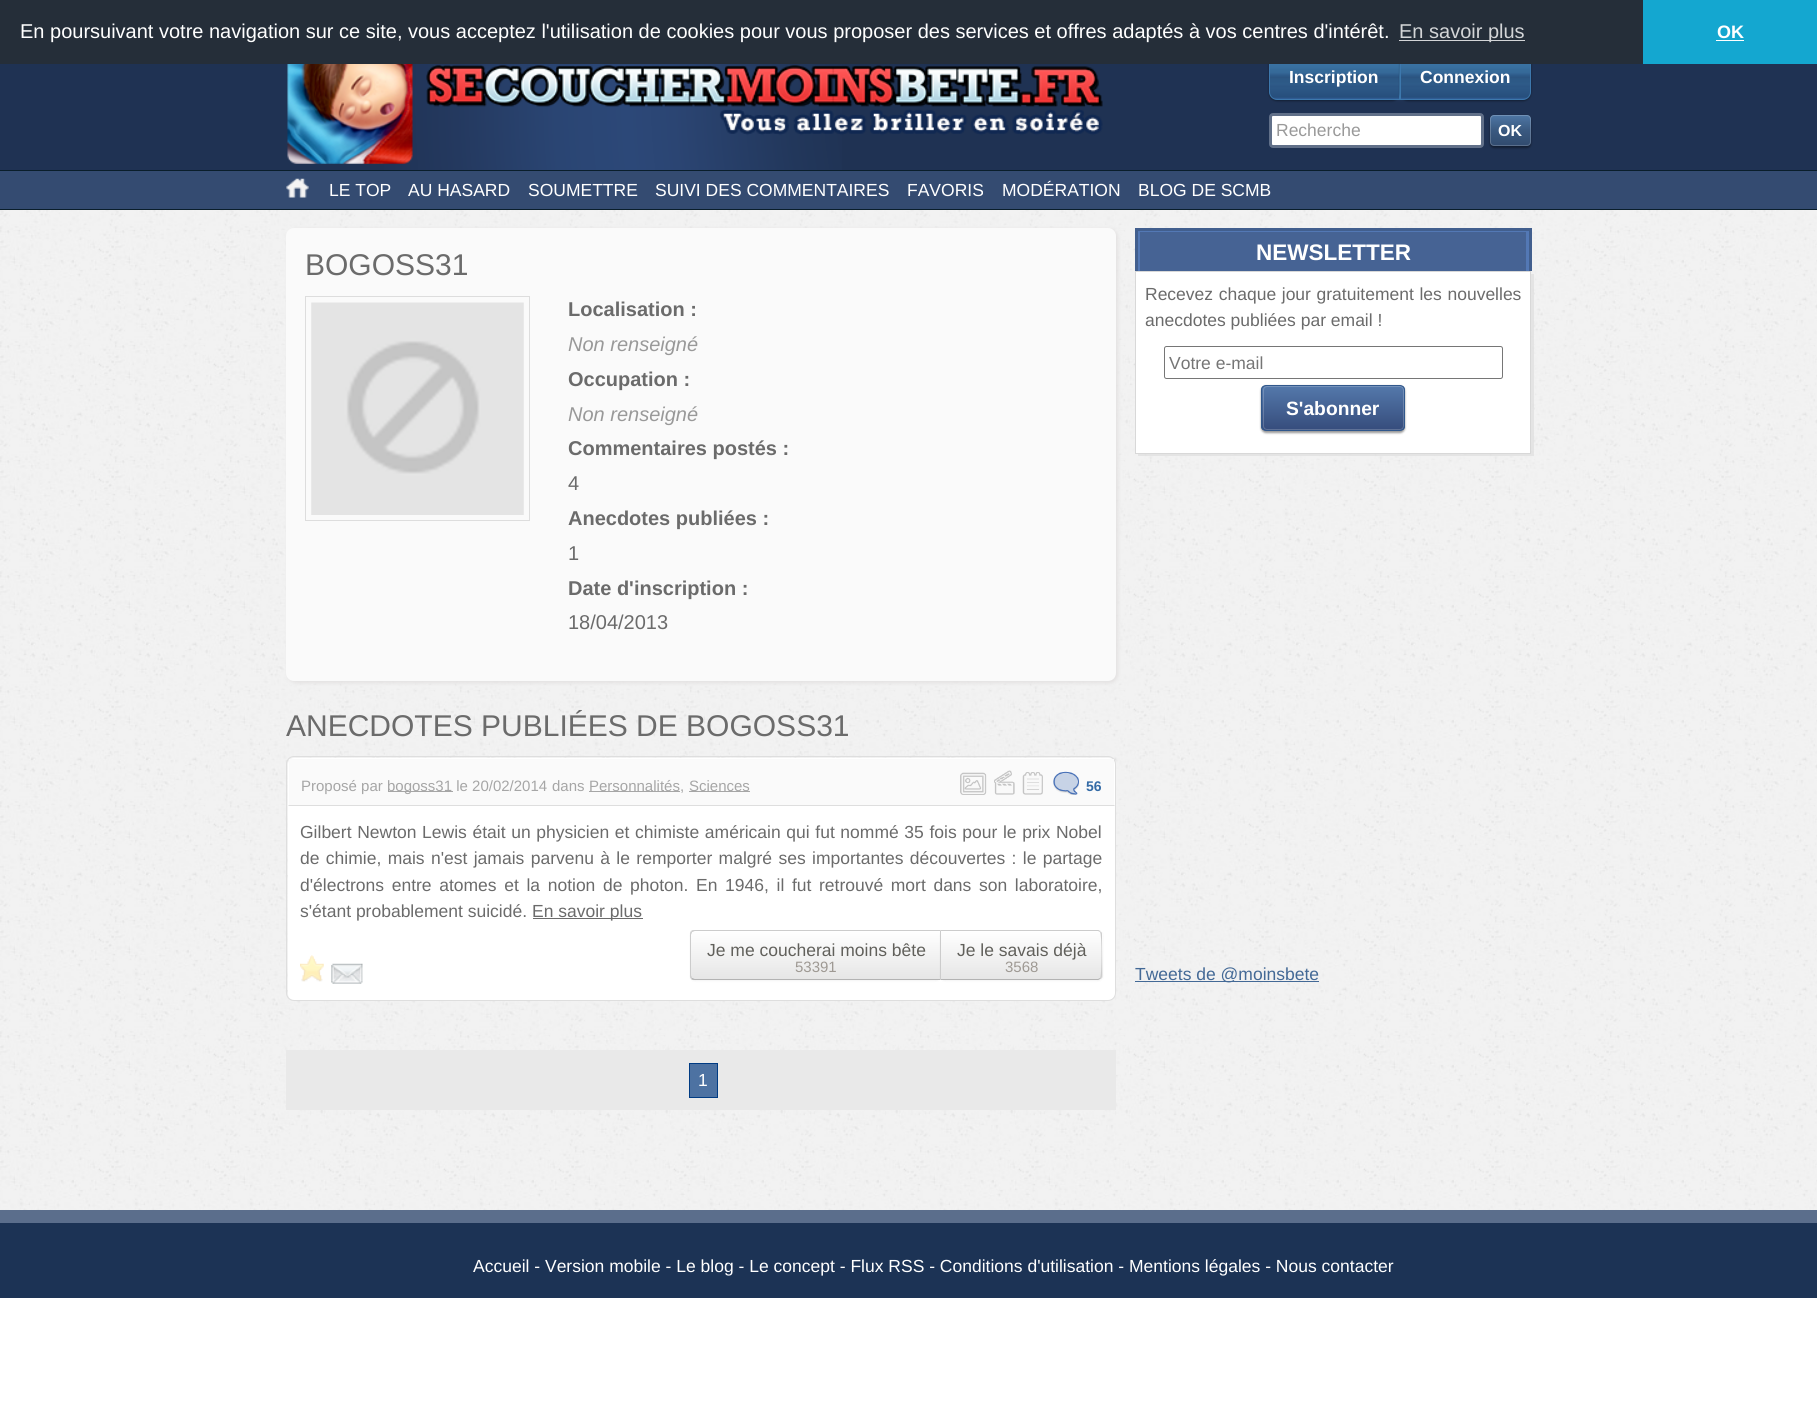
#include <cairo/cairo.h>
#include <math.h>
#include <stddef.h>


static void draw_spaced(cairo_t *cr, double x, double y, const char *s, double letter, double word) {
  cairo_move_to(cr, x, y);
  while (*s) {
    char ch[5] = {0};
    int n = 0;
    do ch[n++] = *s++; while ((*s & 0xC0) == 0x80);
    cairo_show_text(cr, ch);
    cairo_rel_move_to(cr, letter + word * (*ch == ' '), 0);
  }
}

static void rounded_rect(cairo_t *cr, double x, double y, double w, double h, double r) {
  cairo_new_sub_path(cr);
  cairo_arc(cr, x + w - r, y + h - r, r, 0, M_PI / 2);
  cairo_arc(cr, x + r, y + h - r, r, M_PI / 2, M_PI);
  cairo_arc(cr, x + r, y + r, r, M_PI, 1.5 * M_PI);
  cairo_arc(cr, x + w - r, y + r, r, 1.5 * M_PI, 2 * M_PI);
  cairo_close_path(cr);
}

static void draw_shadow(cairo_t *cr, double x, double y, double w, double h, double r, double blur, double alpha) {
  cairo_push_group_with_content(cr, CAIRO_CONTENT_ALPHA);
  cairo_set_operator(cr, CAIRO_OPERATOR_SOURCE);
  for (int i = 15; i >= -15 && fmin(w, h) + blur * i / 3 > 0; i -= 2) {
    double e = blur * i / 6;
    cairo_set_source_rgba(cr, 0, 0, 0, alpha * erfc((i - 1) / 8.5) / 2);
    rounded_rect(cr, x - e, y - e, w + 2 * e, h + 2 * e, fmax(0, fmin(r + e + blur * .6, fmin(w, h) / 2 + e)));
    cairo_fill(cr);
  }
  cairo_pattern_t *soft = cairo_pop_group(cr);
  cairo_mask(cr, soft);
  cairo_pattern_destroy(soft);
}

static void draw_image(cairo_t *cr, const char *path, double x, double y, double w, double h) {
  cairo_surface_t *image = cairo_image_surface_create_from_png(path);
  cairo_save(cr);
  cairo_set_source_surface(cr, image, x, y);
  cairo_rectangle(cr, x, y, w, h);
  cairo_fill(cr);
  cairo_restore(cr);
  cairo_surface_destroy(image);
}

static void draw(cairo_t *cr) {
  cairo_pattern_t *gradient;
  cairo_set_source_rgb(cr, 1, 1, 1);
  cairo_paint(cr);
  cairo_set_source_rgb(cr, 31 / 255.0, 50 / 255.0, 83 / 255.0);
  cairo_rectangle(cr, 0, 64, 1817, 106);
  cairo_fill(cr);
  cairo_set_source_rgb(cr, 0, 0, 0);
  draw_shadow(cr, 1269, 54, 131, 47, 8, 1, 0.4);
  gradient = cairo_pattern_create_linear(1334, 52, 1334, 100);
  cairo_pattern_add_color_stop_rgba(gradient, 0, 13 / 255.0, 75 / 255.0, 143 / 255.0, 1);
  cairo_pattern_add_color_stop_rgba(gradient, 0.03, 82 / 255.0, 163 / 255.0, 198 / 255.0, 1);
  cairo_pattern_add_color_stop_rgba(gradient, 0.06, 63 / 255.0, 124 / 255.0, 172 / 255.0, 1);
  cairo_pattern_add_color_stop_rgba(gradient, 0.33, 56 / 255.0, 111 / 255.0, 159 / 255.0, 1);
  cairo_pattern_add_color_stop_rgba(gradient, 0.36, 54 / 255.0, 107 / 255.0, 154 / 255.0, 1);
  cairo_pattern_add_color_stop_rgba(gradient, 0.42, 54 / 255.0, 106 / 255.0, 153 / 255.0, 1);
  cairo_pattern_add_color_stop_rgba(gradient, 0.44, 52 / 255.0, 102 / 255.0, 150 / 255.0, 1);
  cairo_pattern_add_color_stop_rgba(gradient, 0.5, 44 / 255.0, 88 / 255.0, 134 / 255.0, 1);
  cairo_pattern_add_color_stop_rgba(gradient, 0.53, 43 / 255.0, 84 / 255.0, 129 / 255.0, 1);
  cairo_pattern_add_color_stop_rgba(gradient, 0.56, 44 / 255.0, 88 / 255.0, 132 / 255.0, 1);
  cairo_pattern_add_color_stop_rgba(gradient, 0.67, 46 / 255.0, 91 / 255.0, 137 / 255.0, 1);
  cairo_pattern_add_color_stop_rgba(gradient, 0.72, 44 / 255.0, 86 / 255.0, 132 / 255.0, 1);
  cairo_pattern_add_color_stop_rgba(gradient, 0.75, 44 / 255.0, 87 / 255.0, 133 / 255.0, 1);
  cairo_pattern_add_color_stop_rgba(gradient, 0.94, 39 / 255.0, 78 / 255.0, 124 / 255.0, 1);
  cairo_pattern_add_color_stop_rgba(gradient, 0.97, 47 / 255.0, 92 / 255.0, 147 / 255.0, 1);
  cairo_pattern_add_color_stop_rgba(gradient, 1, 25 / 255.0, 59 / 255.0, 117 / 255.0, 1);
  cairo_set_source(cr, gradient);
  cairo_pattern_destroy(gradient);
  cairo_new_path(cr);
  cairo_move_to(cr, 1277, 53.5);
  cairo_line_to(cr, 1399.5, 53.5);
  cairo_line_to(cr, 1399.5, 99.5);
  cairo_line_to(cr, 1277, 99.5);
  cairo_curve_to(cr, 1273, 99.5, 1269.5, 96, 1269.5, 92);
  cairo_line_to(cr, 1269.5, 61);
  cairo_curve_to(cr, 1269.5, 57, 1273, 53.5, 1277, 53.5);
  cairo_close_path(cr);
  cairo_fill_preserve(cr);
  cairo_set_source_rgb(cr, 61 / 255.0, 120 / 255.0, 173 / 255.0);
  cairo_set_line_width(cr, 1);
  cairo_stroke(cr);
  cairo_set_source_rgb(cr, 0, 0, 0);
  draw_shadow(cr, 1400, 54, 131, 47, 8, 1, 0.4);
  gradient = cairo_pattern_create_linear(1466, 52, 1466, 100);
  cairo_pattern_add_color_stop_rgba(gradient, 0, 13 / 255.0, 75 / 255.0, 143 / 255.0, 1);
  cairo_pattern_add_color_stop_rgba(gradient, 0.03, 82 / 255.0, 163 / 255.0, 198 / 255.0, 1);
  cairo_pattern_add_color_stop_rgba(gradient, 0.06, 63 / 255.0, 124 / 255.0, 172 / 255.0, 1);
  cairo_pattern_add_color_stop_rgba(gradient, 0.33, 56 / 255.0, 111 / 255.0, 159 / 255.0, 1);
  cairo_pattern_add_color_stop_rgba(gradient, 0.36, 54 / 255.0, 107 / 255.0, 154 / 255.0, 1);
  cairo_pattern_add_color_stop_rgba(gradient, 0.42, 54 / 255.0, 106 / 255.0, 153 / 255.0, 1);
  cairo_pattern_add_color_stop_rgba(gradient, 0.44, 52 / 255.0, 102 / 255.0, 150 / 255.0, 1);
  cairo_pattern_add_color_stop_rgba(gradient, 0.5, 44 / 255.0, 88 / 255.0, 134 / 255.0, 1);
  cairo_pattern_add_color_stop_rgba(gradient, 0.53, 43 / 255.0, 84 / 255.0, 129 / 255.0, 1);
  cairo_pattern_add_color_stop_rgba(gradient, 0.56, 44 / 255.0, 88 / 255.0, 132 / 255.0, 1);
  cairo_pattern_add_color_stop_rgba(gradient, 0.67, 46 / 255.0, 91 / 255.0, 137 / 255.0, 1);
  cairo_pattern_add_color_stop_rgba(gradient, 0.72, 44 / 255.0, 86 / 255.0, 132 / 255.0, 1);
  cairo_pattern_add_color_stop_rgba(gradient, 0.75, 44 / 255.0, 87 / 255.0, 133 / 255.0, 1);
  cairo_pattern_add_color_stop_rgba(gradient, 0.94, 39 / 255.0, 78 / 255.0, 124 / 255.0, 1);
  cairo_pattern_add_color_stop_rgba(gradient, 0.97, 47 / 255.0, 92 / 255.0, 147 / 255.0, 1);
  cairo_pattern_add_color_stop_rgba(gradient, 1, 25 / 255.0, 59 / 255.0, 117 / 255.0, 1);
  cairo_set_source(cr, gradient);
  cairo_pattern_destroy(gradient);
  cairo_new_path(cr);
  cairo_move_to(cr, 1400.5, 53.5);
  cairo_line_to(cr, 1523, 53.5);
  cairo_curve_to(cr, 1527, 53.5, 1530.5, 57, 1530.5, 61);
  cairo_line_to(cr, 1530.5, 92);
  cairo_curve_to(cr, 1530.5, 96, 1527, 99.5, 1523, 99.5);
  cairo_line_to(cr, 1400.5, 99.5);
  cairo_close_path(cr);
  cairo_fill_preserve(cr);
  cairo_set_source_rgb(cr, 61 / 255.0, 120 / 255.0, 173 / 255.0);
  cairo_stroke(cr);
  cairo_set_source_rgb(cr, 37 / 255.0, 46 / 255.0, 57 / 255.0);
  cairo_rectangle(cr, 0, 0, 1643, 64);
  cairo_fill(cr);
  cairo_set_source_rgb(cr, 211 / 255.0, 213 / 255.0, 215 / 255.0);
  cairo_rectangle(cr, 1399, 40, 126, 1);
  cairo_fill(cr);
  cairo_set_source_rgb(cr, 20 / 255.0, 167 / 255.0, 208 / 255.0);
  cairo_rectangle(cr, 1643, 0, 174, 64);
  cairo_fill(cr);
  cairo_set_source_rgb(cr, 1, 1, 1);
  cairo_rectangle(cr, 1716, 40, 28, 1);
  cairo_fill(cr);
  draw_image(cr, "images/1.png", 0, 210, 1817, 1000);
  gradient = cairo_pattern_create_radial(1190, 101, 0, 1190, 101, 906);
  cairo_pattern_add_color_stop_rgba(gradient, 0, 31 / 255.0, 50 / 255.0, 83 / 255.0, 1);
  cairo_pattern_add_color_stop_rgba(gradient, 0.37, 31 / 255.0, 50 / 255.0, 83 / 255.0, 1);
  cairo_pattern_add_color_stop_rgba(gradient, 0.44, 34 / 255.0, 55 / 255.0, 91 / 255.0, 1);
  cairo_pattern_add_color_stop_rgba(gradient, 0.57, 43 / 255.0, 69 / 255.0, 115 / 255.0, 1);
  cairo_pattern_add_color_stop_rgba(gradient, 0.62, 44 / 255.0, 72 / 255.0, 120 / 255.0, 1);
  cairo_pattern_add_color_stop_rgba(gradient, 0.7, 42 / 255.0, 69 / 255.0, 115 / 255.0, 1);
  cairo_pattern_add_color_stop_rgba(gradient, 0.81, 36 / 255.0, 57 / 255.0, 95 / 255.0, 1);
  cairo_pattern_add_color_stop_rgba(gradient, 0.9, 31 / 255.0, 50 / 255.0, 84 / 255.0, 1);
  cairo_pattern_add_color_stop_rgba(gradient, 1, 31 / 255.0, 50 / 255.0, 83 / 255.0, 1);
  cairo_set_source(cr, gradient);
  cairo_pattern_destroy(gradient);
  cairo_rectangle(cr, 384, 64, 458, 106);
  cairo_fill(cr);
  draw_image(cr, "images/2.png", 287, 64, 816, 100);
  cairo_set_source_rgb(cr, 1, 1, 1);
  rounded_rect(cr, 1270.5, 114.5, 212, 32, 2.5);
  cairo_fill_preserve(cr);
  cairo_set_source_rgb(cr, 97 / 255.0, 112 / 255.0, 137 / 255.0);
  cairo_set_line_width(cr, 3);
  cairo_stroke(cr);
  cairo_set_source_rgb(cr, 0, 0, 0);
  draw_shadow(cr, 1490, 116, 41, 32, 4, 1, 0.4);
  gradient = cairo_pattern_create_linear(1511, 115, 1511, 146);
  cairo_pattern_add_color_stop_rgba(gradient, 0, 78 / 255.0, 119 / 255.0, 165 / 255.0, 1);
  cairo_pattern_add_color_stop_rgba(gradient, 0.5, 58 / 255.0, 89 / 255.0, 128 / 255.0, 1);
  cairo_pattern_add_color_stop_rgba(gradient, 1, 49 / 255.0, 75 / 255.0, 110 / 255.0, 1);
  cairo_set_source(cr, gradient);
  cairo_pattern_destroy(gradient);
  rounded_rect(cr, 1490, 115, 41, 31, 4);
  cairo_fill(cr);
  rounded_rect(cr, 1490.5, 115.5, 40, 30, 3.5);
  cairo_set_source_rgba(cr, 1, 1, 1, 0.2);
  cairo_set_line_width(cr, 1);
  cairo_stroke(cr);
  cairo_set_source_rgb(cr, 52 / 255.0, 75 / 255.0, 113 / 255.0);
  cairo_rectangle(cr, 0, 171, 1817, 38);
  cairo_fill(cr);
  cairo_set_source_rgb(cr, 10 / 255.0, 30 / 255.0, 43 / 255.0);
  cairo_rectangle(cr, 0, 170, 1817, 1);
  cairo_fill(cr);
  cairo_rectangle(cr, 0, 209, 1817, 1);
  cairo_fill(cr);
  draw_image(cr, "images/3.png", 286, 178, 23, 20);
  cairo_set_source_rgb(cr, 227 / 255.0, 225 / 255.0, 225 / 255.0);
  draw_shadow(cr, 288, 229, 830, 454, 8, 2, 1);
  cairo_set_source_rgb(cr, 250 / 255.0, 250 / 255.0, 250 / 255.0);
  rounded_rect(cr, 286, 228, 830, 453, 8);
  cairo_fill(cr);
  cairo_rectangle(cr, 305.5, 296.5, 224, 224);
  cairo_set_source_rgb(cr, 221 / 255.0, 221 / 255.0, 221 / 255.0);
  cairo_stroke(cr);
  draw_image(cr, "images/4.png", 311, 302, 213, 213);
  cairo_set_source_rgb(cr, 1, 1, 1);
  rounded_rect(cr, 288, 758, 827, 242, 6);
  cairo_fill(cr);
  rounded_rect(cr, 286.5, 756.5, 829, 244, 7.5);
  cairo_set_source_rgb(cr, 222 / 255.0, 222 / 255.0, 222 / 255.0);
  cairo_stroke(cr);
  cairo_set_source_rgb(cr, 250 / 255.0, 250 / 255.0, 250 / 255.0);
  cairo_rectangle(cr, 289, 759, 825, 46);
  cairo_fill(cr);
  cairo_set_source_rgb(cr, 222 / 255.0, 222 / 255.0, 222 / 255.0);
  cairo_new_path(cr);
  cairo_move_to(cr, 1115, 806);
  cairo_line_to(cr, 288, 806);
  cairo_line_to(cr, 289, 805);
  cairo_line_to(cr, 1114, 805);
  cairo_close_path(cr);
  cairo_fill(cr);
  cairo_set_source_rgb(cr, 166 / 255.0, 166 / 255.0, 166 / 255.0);
  cairo_rectangle(cr, 388, 791, 65, 1);
  cairo_fill(cr);
  cairo_rectangle(cr, 589, 791, 91, 1);
  cairo_fill(cr);
  cairo_rectangle(cr, 689, 791, 61, 1);
  cairo_fill(cr);
  draw_image(cr, "images/5.png", 960, 772, 27, 23);
  draw_image(cr, "images/6.png", 994, 770, 21, 25);
  draw_image(cr, "images/7.png", 1022, 772, 21, 23);
  draw_image(cr, "images/8.png", 1053, 771, 26, 24);
  cairo_set_source_rgb(cr, 107 / 255.0, 107 / 255.0, 107 / 255.0);
  cairo_rectangle(cr, 533, 918, 110, 1);
  cairo_fill(cr);
  draw_image(cr, "images/9.png", 300, 955, 24, 27);
  draw_image(cr, "images/10.png", 331, 963, 32, 21);
  cairo_set_source_rgb(cr, 0, 0, 0);
  draw_shadow(cr, 690, 931, 251, 50, 5, 1, 0.05);
  cairo_save(cr);
  cairo_new_path(cr);
  cairo_move_to(cr, 695, 930);
  cairo_line_to(cr, 941, 930);
  cairo_line_to(cr, 941, 980);
  cairo_line_to(cr, 695, 980);
  cairo_curve_to(cr, 692, 980, 690, 978, 690, 975);
  cairo_line_to(cr, 690, 935);
  cairo_curve_to(cr, 690, 932, 692, 930, 695, 930);
  cairo_close_path(cr);
  cairo_clip(cr);
  gradient = cairo_pattern_create_linear(816, 931, 816, 979);
  cairo_pattern_add_color_stop_rgba(gradient, 0, 1, 1, 1, 1);
  cairo_pattern_add_color_stop_rgba(gradient, 1, 230 / 255.0, 230 / 255.0, 230 / 255.0, 1);
  cairo_set_source(cr, gradient);
  cairo_pattern_destroy(gradient);
  cairo_rectangle(cr, 690, 931, 250, 48);
  cairo_fill(cr);
  cairo_restore(cr);
  cairo_set_source_rgb(cr, 204 / 255.0, 204 / 255.0, 204 / 255.0);
  cairo_new_path(cr);
  cairo_move_to(cr, 695, 930);
  cairo_curve_to(cr, 694, 930, 692, 930, 691, 931);
  cairo_line_to(cr, 692, 932);
  cairo_curve_to(cr, 693, 932, 694, 931, 695, 931);
  cairo_line_to(cr, 940, 931);
  cairo_line_to(cr, 941, 930);
  cairo_close_path(cr);
  cairo_fill(cr);
  cairo_set_source_rgb(cr, 179 / 255.0, 179 / 255.0, 179 / 255.0);
  cairo_new_path(cr);
  cairo_move_to(cr, 695, 980);
  cairo_line_to(cr, 941, 980);
  cairo_line_to(cr, 940, 979);
  cairo_line_to(cr, 695, 979);
  cairo_curve_to(cr, 694, 979, 693, 978, 692, 978);
  cairo_line_to(cr, 691, 979);
  cairo_curve_to(cr, 692, 980, 694, 980, 695, 980);
  cairo_close_path(cr);
  cairo_fill(cr);
  cairo_set_source_rgb(cr, 204 / 255.0, 204 / 255.0, 204 / 255.0);
  cairo_new_path(cr);
  cairo_move_to(cr, 690, 935);
  cairo_line_to(cr, 690, 975);
  cairo_curve_to(cr, 690, 976, 690, 978, 691, 979);
  cairo_line_to(cr, 692, 978);
  cairo_curve_to(cr, 692, 977, 691, 976, 691, 975);
  cairo_line_to(cr, 691, 935);
  cairo_curve_to(cr, 691, 934, 692, 933, 692, 932);
  cairo_line_to(cr, 691, 931);
  cairo_curve_to(cr, 690, 932, 690, 934, 690, 935);
  cairo_close_path(cr);
  cairo_fill(cr);
  cairo_set_source_rgb(cr, 0, 0, 0);
  draw_shadow(cr, 940, 931, 163, 50, 5, 1, 0.05);
  cairo_set_source_rgb(cr, 245 / 255.0, 245 / 255.0, 245 / 255.0);
  cairo_new_path(cr);
  cairo_move_to(cr, 940, 930);
  cairo_line_to(cr, 1098, 930);
  cairo_curve_to(cr, 1101, 930, 1103, 932, 1103, 935);
  cairo_line_to(cr, 1103, 975);
  cairo_curve_to(cr, 1103, 978, 1101, 980, 1098, 980);
  cairo_line_to(cr, 940, 980);
  cairo_close_path(cr);
  cairo_fill(cr);
  cairo_save(cr);
  cairo_new_path(cr);
  cairo_move_to(cr, 940, 930);
  cairo_line_to(cr, 1098, 930);
  cairo_curve_to(cr, 1101, 930, 1103, 932, 1103, 935);
  cairo_line_to(cr, 1103, 975);
  cairo_curve_to(cr, 1103, 978, 1101, 980, 1098, 980);
  cairo_line_to(cr, 940, 980);
  cairo_close_path(cr);
  cairo_clip(cr);
  gradient = cairo_pattern_create_linear(1021, 931, 1021, 979);
  cairo_pattern_add_color_stop_rgba(gradient, 0, 1, 1, 1, 1);
  cairo_pattern_add_color_stop_rgba(gradient, 1, 230 / 255.0, 230 / 255.0, 230 / 255.0, 1);
  cairo_set_source(cr, gradient);
  cairo_pattern_destroy(gradient);
  cairo_rectangle(cr, 941, 931, 162, 48);
  cairo_fill(cr);
  cairo_restore(cr);
  cairo_set_source_rgb(cr, 204 / 255.0, 204 / 255.0, 204 / 255.0);
  cairo_new_path(cr);
  cairo_move_to(cr, 940, 930);
  cairo_line_to(cr, 941, 931);
  cairo_line_to(cr, 1098, 931);
  cairo_line_to(cr, 1100, 932);
  cairo_line_to(cr, 1101, 932);
  cairo_curve_to(cr, 1100, 931, 1099, 930, 1098, 930);
  cairo_close_path(cr);
  cairo_fill(cr);
  cairo_new_path(cr);
  cairo_move_to(cr, 1101, 932);
  cairo_curve_to(cr, 1102, 932, 1102, 934, 1102, 935);
  cairo_line_to(cr, 1102, 975);
  cairo_curve_to(cr, 1102, 976, 1102, 978, 1101, 978);
  cairo_line_to(cr, 1100, 978);
  cairo_curve_to(cr, 1102, 976, 1102, 934, 1100, 932);
  cairo_close_path(cr);
  cairo_fill(cr);
  cairo_set_source_rgb(cr, 179 / 255.0, 179 / 255.0, 179 / 255.0);
  cairo_new_path(cr);
  cairo_move_to(cr, 1098, 980);
  cairo_curve_to(cr, 1099, 980, 1100, 979, 1101, 978);
  cairo_line_to(cr, 1100, 978);
  cairo_line_to(cr, 1098, 979);
  cairo_line_to(cr, 941, 979);
  cairo_line_to(cr, 940, 980);
  cairo_close_path(cr);
  cairo_fill(cr);
  cairo_set_source_rgb(cr, 204 / 255.0, 204 / 255.0, 204 / 255.0);
  cairo_new_path(cr);
  cairo_move_to(cr, 940, 930);
  cairo_line_to(cr, 940, 980);
  cairo_line_to(cr, 941, 979);
  cairo_line_to(cr, 941, 931);
  cairo_close_path(cr);
  cairo_fill(cr);
  cairo_set_source_rgb(cr, 233 / 255.0, 233 / 255.0, 233 / 255.0);
  cairo_rectangle(cr, 286, 1050, 830, 60);
  cairo_fill(cr);
  cairo_set_source_rgb(cr, 77 / 255.0, 114 / 255.0, 162 / 255.0);
  cairo_rectangle(cr, 689.5, 1063.5, 28, 34);
  cairo_fill_preserve(cr);
  cairo_set_source_rgb(cr, 0, 59 / 255.0, 131 / 255.0);
  cairo_stroke(cr);
  cairo_set_source_rgb(cr, 70 / 255.0, 99 / 255.0, 148 / 255.0);
  cairo_rectangle(cr, 1140, 232, 386, 39);
  cairo_fill(cr);
  cairo_set_source_rgb(cr, 83 / 255.0, 120 / 255.0, 181 / 255.0);
  cairo_rectangle(cr, 1526, 230, 3, 41);
  cairo_fill(cr);
  cairo_save(cr);
  cairo_rectangle(cr, 1138, 230, 391, 41);
  cairo_clip(cr);
  cairo_set_fill_rule(cr, CAIRO_FILL_RULE_EVEN_ODD);
  cairo_new_path(cr);
  cairo_move_to(cr, 1014, 106);
  cairo_line_to(cr, 1652, 106);
  cairo_line_to(cr, 1652, 395);
  cairo_line_to(cr, 1014, 395);
  cairo_close_path(cr);
  cairo_move_to(cr, 1140, 232);
  cairo_line_to(cr, 1531, 232);
  cairo_line_to(cr, 1531, 274);
  cairo_line_to(cr, 1140, 274);
  cairo_close_path(cr);
  cairo_fill(cr);
  cairo_restore(cr);
  cairo_set_source_rgb(cr, 66 / 255.0, 95 / 255.0, 142 / 255.0);
  cairo_rectangle(cr, 1135, 228, 396, 3);
  cairo_fill(cr);
  cairo_rectangle(cr, 1529, 228, 3, 43);
  cairo_fill(cr);
  cairo_rectangle(cr, 1135, 228, 3, 43);
  cairo_fill(cr);
  cairo_set_source_rgba(cr, 221 / 255.0, 221 / 255.0, 221 / 255.0, 0.65);
  cairo_new_path(cr);
  cairo_move_to(cr, 1138, 454);
  cairo_line_to(cr, 1138, 456);
  cairo_line_to(cr, 1534, 456);
  cairo_line_to(cr, 1534, 274);
  cairo_line_to(cr, 1531, 274);
  cairo_line_to(cr, 1531, 454);
  cairo_close_path(cr);
  cairo_fill(cr);
  cairo_set_source_rgb(cr, 1, 1, 1);
  cairo_rectangle(cr, 1135.5, 271.5, 395, 182);
  cairo_fill_preserve(cr);
  cairo_set_source_rgb(cr, 216 / 255.0, 216 / 255.0, 216 / 255.0);
  cairo_stroke(cr);
  rounded_rect(cr, 1164.5, 346.5, 338, 32, 2);
  cairo_set_source_rgb(cr, 118 / 255.0, 118 / 255.0, 118 / 255.0);
  cairo_stroke(cr);
  cairo_set_source_rgb(cr, 0, 0, 0);
  draw_shadow(cr, 1261, 386, 144, 47, 5, 1, 0.4);
  cairo_save(cr);
  rounded_rect(cr, 1261, 385, 144, 46, 5);
  cairo_clip(cr);
  gradient = cairo_pattern_create_linear(1333, 386, 1333, 430);
  cairo_pattern_add_color_stop_rgba(gradient, 0, 84 / 255.0, 120 / 255.0, 171 / 255.0, 1);
  cairo_pattern_add_color_stop_rgba(gradient, 1, 54 / 255.0, 77 / 255.0, 124 / 255.0, 1);
  cairo_set_source(cr, gradient);
  cairo_pattern_destroy(gradient);
  cairo_rectangle(cr, 1261, 386, 144, 44);
  cairo_fill(cr);
  cairo_restore(cr);
  rounded_rect(cr, 1263.5, 386.5, 140, 43, 3.5);
  cairo_set_source_rgba(cr, 1, 1, 1, 0.2);
  cairo_stroke(cr);
  rounded_rect(cr, 1261.5, 385.5, 143, 45, 4.5);
  cairo_set_source_rgb(cr, 49 / 255.0, 88 / 255.0, 140 / 255.0);
  cairo_stroke(cr);
  cairo_set_source_rgb(cr, 67 / 255.0, 105 / 255.0, 150 / 255.0);
  cairo_rectangle(cr, 1135, 981, 184, 1);
  cairo_fill(cr);
  cairo_set_source_rgb(cr, 28 / 255.0, 51 / 255.0, 85 / 255.0);
  cairo_rectangle(cr, 0, 1223, 1817, 75);
  cairo_fill(cr);
  cairo_set_source_rgb(cr, 91 / 255.0, 110 / 255.0, 140 / 255.0);
  cairo_rectangle(cr, 0, 1210, 1817, 13);
  cairo_fill(cr);
  cairo_select_font_face(cr, "Liberation Sans", CAIRO_FONT_SLANT_NORMAL, CAIRO_FONT_WEIGHT_NORMAL);
  cairo_set_font_size(cr, 20);
  cairo_set_source_rgb(cr, 1, 1, 1);
  cairo_move_to(cr, 20, 38);
  cairo_show_text(cr, "En poursuivant votre navigation sur ce site, vous acceptez l'utilisation de cookies pour vous proposer des services et offres adaptés à vos centres d'intérêt.");
  cairo_set_source_rgb(cr, 211 / 255.0, 213 / 255.0, 215 / 255.0);
  cairo_move_to(cr, 1399, 38);
  cairo_show_text(cr, "En savoir plus");
  cairo_select_font_face(cr, "Liberation Sans", CAIRO_FONT_SLANT_NORMAL, CAIRO_FONT_WEIGHT_BOLD);
  cairo_set_font_size(cr, 18);
  cairo_set_source_rgb(cr, 1, 1, 1);
  cairo_move_to(cr, 1717, 38);
  cairo_show_text(cr, "OK");
  cairo_set_font_size(cr, 17.5);
  cairo_move_to(cr, 1289, 83);
  cairo_show_text(cr, "Inscription");
  cairo_move_to(cr, 1420, 83);
  cairo_show_text(cr, "Connexion");
  cairo_select_font_face(cr, "Liberation Sans", CAIRO_FONT_SLANT_NORMAL, CAIRO_FONT_WEIGHT_NORMAL);
  cairo_set_source_rgb(cr, 153 / 255.0, 153 / 255.0, 153 / 255.0);
  cairo_move_to(cr, 1276, 136);
  cairo_show_text(cr, "Recherche");
  cairo_select_font_face(cr, "Liberation Sans", CAIRO_FONT_SLANT_NORMAL, CAIRO_FONT_WEIGHT_BOLD);
  cairo_set_font_size(cr, 16);
  cairo_set_source_rgb(cr, 1, 1, 1);
  cairo_move_to(cr, 1498, 136);
  cairo_show_text(cr, "OK");
  cairo_select_font_face(cr, "Liberation Sans", CAIRO_FONT_SLANT_NORMAL, CAIRO_FONT_WEIGHT_NORMAL);
  cairo_set_font_size(cr, 17.5);
  cairo_move_to(cr, 329, 196);
  cairo_show_text(cr, "LE TOP");
  cairo_move_to(cr, 408, 196);
  cairo_show_text(cr, "AU HASARD");
  cairo_move_to(cr, 528, 196);
  cairo_show_text(cr, "SOUMETTRE");
  cairo_move_to(cr, 655, 196);
  cairo_show_text(cr, "SUIVI DES COMMENTAIRES");
  cairo_move_to(cr, 907, 196);
  cairo_show_text(cr, "FAVORIS");
  cairo_move_to(cr, 1002, 196);
  cairo_show_text(cr, "MODÉRATION");
  cairo_move_to(cr, 1138, 196);
  cairo_show_text(cr, "BLOG DE SCMB");
  cairo_set_font_size(cr, 30);
  cairo_set_source_rgb(cr, 107 / 255.0, 107 / 255.0, 107 / 255.0);
  cairo_move_to(cr, 305, 275);
  cairo_show_text(cr, "BOGOSS31");
  cairo_select_font_face(cr, "Liberation Sans", CAIRO_FONT_SLANT_NORMAL, CAIRO_FONT_WEIGHT_BOLD);
  cairo_set_font_size(cr, 20);
  cairo_move_to(cr, 568, 316);
  cairo_show_text(cr, "Localisation :");
  cairo_select_font_face(cr, "Liberation Sans", CAIRO_FONT_SLANT_ITALIC, CAIRO_FONT_WEIGHT_NORMAL);
  cairo_set_source_rgb(cr, 153 / 255.0, 153 / 255.0, 153 / 255.0);
  cairo_move_to(cr, 568, 351);
  cairo_show_text(cr, "Non renseigné");
  cairo_select_font_face(cr, "Liberation Sans", CAIRO_FONT_SLANT_NORMAL, CAIRO_FONT_WEIGHT_BOLD);
  cairo_set_source_rgb(cr, 107 / 255.0, 107 / 255.0, 107 / 255.0);
  cairo_move_to(cr, 568, 386);
  cairo_show_text(cr, "Occupation :");
  cairo_select_font_face(cr, "Liberation Sans", CAIRO_FONT_SLANT_ITALIC, CAIRO_FONT_WEIGHT_NORMAL);
  cairo_set_source_rgb(cr, 153 / 255.0, 153 / 255.0, 153 / 255.0);
  cairo_move_to(cr, 568, 421);
  cairo_show_text(cr, "Non renseigné");
  cairo_select_font_face(cr, "Liberation Sans", CAIRO_FONT_SLANT_NORMAL, CAIRO_FONT_WEIGHT_BOLD);
  cairo_set_source_rgb(cr, 107 / 255.0, 107 / 255.0, 107 / 255.0);
  cairo_move_to(cr, 568, 455);
  cairo_show_text(cr, "Commentaires postés :");
  cairo_select_font_face(cr, "Liberation Sans", CAIRO_FONT_SLANT_NORMAL, CAIRO_FONT_WEIGHT_NORMAL);
  cairo_move_to(cr, 568, 490);
  cairo_show_text(cr, "4");
  cairo_select_font_face(cr, "Liberation Sans", CAIRO_FONT_SLANT_NORMAL, CAIRO_FONT_WEIGHT_BOLD);
  cairo_move_to(cr, 568, 525);
  cairo_show_text(cr, "Anecdotes publiées :");
  cairo_select_font_face(cr, "Liberation Sans", CAIRO_FONT_SLANT_NORMAL, CAIRO_FONT_WEIGHT_NORMAL);
  cairo_move_to(cr, 568, 560);
  cairo_show_text(cr, "1");
  cairo_select_font_face(cr, "Liberation Sans", CAIRO_FONT_SLANT_NORMAL, CAIRO_FONT_WEIGHT_BOLD);
  cairo_move_to(cr, 568, 595);
  cairo_show_text(cr, "Date d'inscription :");
  cairo_select_font_face(cr, "Liberation Sans", CAIRO_FONT_SLANT_NORMAL, CAIRO_FONT_WEIGHT_NORMAL);
  cairo_move_to(cr, 568, 629);
  cairo_show_text(cr, "18/04/2013");
  cairo_set_font_size(cr, 30);
  cairo_move_to(cr, 286, 736);
  cairo_show_text(cr, "ANECDOTES PUBLIÉES DE BOGOSS31");
  cairo_set_font_size(cr, 15);
  cairo_set_source_rgb(cr, 166 / 255.0, 166 / 255.0, 166 / 255.0);
  cairo_move_to(cr, 301, 791);
  cairo_show_text(cr, "Proposé par");
  cairo_move_to(cr, 387, 791);
  cairo_show_text(cr, "bogoss31 le 20/02/2014");
  cairo_move_to(cr, 552, 791);
  cairo_show_text(cr, "dans");
  cairo_move_to(cr, 589, 791);
  cairo_show_text(cr, "Personnalités,");
  cairo_move_to(cr, 689, 791);
  cairo_show_text(cr, "Sciences");
  cairo_select_font_face(cr, "Liberation Sans", CAIRO_FONT_SLANT_NORMAL, CAIRO_FONT_WEIGHT_BOLD);
  cairo_set_font_size(cr, 14);
  cairo_set_source_rgb(cr, 51 / 255.0, 106 / 255.0, 166 / 255.0);
  cairo_move_to(cr, 1086, 791);
  cairo_show_text(cr, "56");
  cairo_select_font_face(cr, "Liberation Sans", CAIRO_FONT_SLANT_NORMAL, CAIRO_FONT_WEIGHT_NORMAL);
  cairo_set_font_size(cr, 17.5);
  cairo_set_source_rgb(cr, 107 / 255.0, 107 / 255.0, 107 / 255.0);
  draw_spaced(cr, 300, 838, "Gilbert Newton Lewis était un physicien et chimiste américain qui fut nommé 35 fois pour le prix Nobel", 0, 0.75);
  draw_spaced(cr, 300, 864, "de chimie, mais n'est jamais parvenu à le remporter malgré ses importantes découvertes : le partage", 0, 1.5);
  draw_spaced(cr, 300, 891, "d'électrons entre atomes et la notion de photon. En 1946, il fut retrouvé mort dans son laboratoire,", 0, 2.75);
  cairo_move_to(cr, 300, 917);
  cairo_show_text(cr, "s'étant probablement suicidé.");
  cairo_move_to(cr, 532, 917);
  cairo_show_text(cr, "En savoir plus");
  cairo_set_source_rgb(cr, 97 / 255.0, 96 / 255.0, 91 / 255.0);
  cairo_move_to(cr, 707, 956);
  cairo_show_text(cr, "Je me coucherai moins bête");
  cairo_set_font_size(cr, 15);
  cairo_set_source_rgb(cr, 158 / 255.0, 153 / 255.0, 147 / 255.0);
  cairo_move_to(cr, 795, 972);
  cairo_show_text(cr, "53391");
  cairo_set_font_size(cr, 17.5);
  cairo_set_source_rgb(cr, 97 / 255.0, 96 / 255.0, 91 / 255.0);
  cairo_move_to(cr, 957, 956);
  cairo_show_text(cr, "Je le savais déjà");
  cairo_set_font_size(cr, 15);
  cairo_set_source_rgb(cr, 158 / 255.0, 153 / 255.0, 147 / 255.0);
  cairo_move_to(cr, 1005, 972);
  cairo_show_text(cr, "3568");
  cairo_set_font_size(cr, 17.5);
  cairo_set_source_rgb(cr, 1, 1, 1);
  cairo_move_to(cr, 698, 1086);
  cairo_show_text(cr, "1");
  cairo_select_font_face(cr, "Liberation Sans", CAIRO_FONT_SLANT_NORMAL, CAIRO_FONT_WEIGHT_BOLD);
  cairo_set_font_size(cr, 22.5);
  cairo_move_to(cr, 1256, 260);
  cairo_show_text(cr, "NEWSLETTER");
  cairo_select_font_face(cr, "Liberation Sans", CAIRO_FONT_SLANT_NORMAL, CAIRO_FONT_WEIGHT_NORMAL);
  cairo_set_font_size(cr, 17.5);
  cairo_set_source_rgb(cr, 107 / 255.0, 107 / 255.0, 107 / 255.0);
  draw_spaced(cr, 1145, 300, "Recevez chaque jour gratuitement les nouvelles", 0, 0.75);
  cairo_move_to(cr, 1145, 326);
  cairo_show_text(cr, "anecdotes publiées par email !");
  cairo_set_source_rgb(cr, 117 / 255.0, 117 / 255.0, 117 / 255.0);
  cairo_move_to(cr, 1169, 369);
  cairo_show_text(cr, "Votre e-mail");
  cairo_select_font_face(cr, "Liberation Sans", CAIRO_FONT_SLANT_NORMAL, CAIRO_FONT_WEIGHT_BOLD);
  cairo_set_font_size(cr, 19.25);
  cairo_set_source_rgb(cr, 1, 1, 1);
  cairo_move_to(cr, 1286, 415);
  cairo_show_text(cr, "S'abonner");
  cairo_select_font_face(cr, "Liberation Sans", CAIRO_FONT_SLANT_NORMAL, CAIRO_FONT_WEIGHT_NORMAL);
  cairo_set_font_size(cr, 17.5);
  cairo_set_source_rgb(cr, 67 / 255.0, 105 / 255.0, 150 / 255.0);
  cairo_move_to(cr, 1135, 980);
  cairo_show_text(cr, "Tweets de @moinsbete");
  cairo_set_source_rgb(cr, 1, 1, 1);
  cairo_move_to(cr, 473, 1272);
  cairo_show_text(cr, "Accueil - Version mobile - Le blog - Le concept - Flux RSS - Conditions d'utilisation - Mentions légales - Nous contacter");
}

int main(void) {
  cairo_surface_t *surface = cairo_image_surface_create(CAIRO_FORMAT_RGB24, 1817, 1404);
  cairo_t *cr = cairo_create(surface);
  cairo_font_options_t *options = cairo_font_options_create();
  cairo_font_options_set_hint_metrics(options, CAIRO_HINT_METRICS_OFF);
  cairo_font_options_set_hint_style(options, CAIRO_HINT_STYLE_NONE);
  cairo_set_font_options(cr, options);
  cairo_set_miter_limit(cr, 4);
  draw(cr);
  cairo_surface_write_to_png(surface, "out.png");
  cairo_font_options_destroy(options);
  cairo_destroy(cr);
  cairo_surface_destroy(surface);
  return 0;
}
